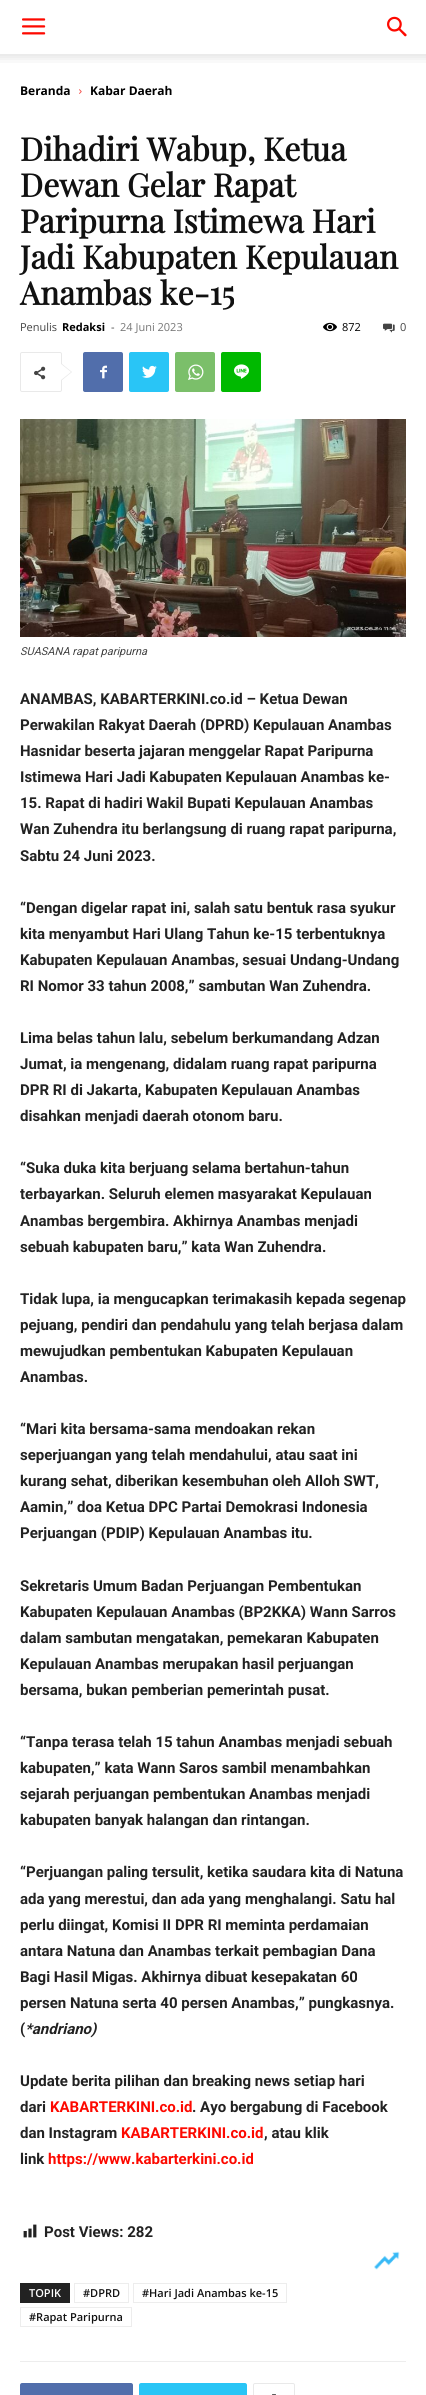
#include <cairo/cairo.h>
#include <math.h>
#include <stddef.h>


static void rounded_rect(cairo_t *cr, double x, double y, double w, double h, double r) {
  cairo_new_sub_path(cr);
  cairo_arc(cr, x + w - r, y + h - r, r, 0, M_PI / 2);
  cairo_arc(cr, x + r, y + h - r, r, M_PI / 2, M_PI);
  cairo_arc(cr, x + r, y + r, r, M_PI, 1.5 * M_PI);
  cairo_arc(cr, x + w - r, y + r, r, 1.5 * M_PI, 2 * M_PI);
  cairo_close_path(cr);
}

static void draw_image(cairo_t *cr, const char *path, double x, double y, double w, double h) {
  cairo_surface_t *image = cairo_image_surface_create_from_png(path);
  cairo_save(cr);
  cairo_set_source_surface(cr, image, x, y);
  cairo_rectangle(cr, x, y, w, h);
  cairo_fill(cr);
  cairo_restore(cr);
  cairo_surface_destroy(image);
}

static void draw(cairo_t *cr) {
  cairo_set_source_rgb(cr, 1, 1, 1);
  cairo_paint(cr);
  draw_image(cr, "images/1.png", 22, 18, 24, 17);
  draw_image(cr, "images/2.png", 387, 16, 20, 21);
  draw_image(cr, "images/3.png", 0, 54, 426, 9);
  draw_image(cr, "images/4.png", 79, 89, 3, 5);
  draw_image(cr, "images/5.png", 323, 322, 14, 10);
  draw_image(cr, "images/6.png", 383, 323, 12, 10);
  rounded_rect(cr, 20.5, 352.5, 41, 39, 1.5);
  cairo_set_source_rgb(cr, 233 / 255.0, 233 / 255.0, 233 / 255.0);
  cairo_set_line_width(cr, 1);
  cairo_stroke(cr);
  cairo_new_path(cr);
  cairo_move_to(cr, 61, 381);
  cairo_line_to(cr, 61, 363);
  cairo_line_to(cr, 72, 372);
  cairo_close_path(cr);
  cairo_fill(cr);
  draw_image(cr, "images/7.png", 34, 366, 12, 14);
  cairo_set_source_rgb(cr, 1, 1, 1);
  cairo_new_path(cr);
  cairo_move_to(cr, 61, 380);
  cairo_line_to(cr, 61, 364);
  cairo_line_to(cr, 71, 372);
  cairo_close_path(cr);
  cairo_fill(cr);
  cairo_set_source_rgb(cr, 81 / 255.0, 110 / 255.0, 171 / 255.0);
  rounded_rect(cr, 83, 352, 40, 40, 2);
  cairo_fill(cr);
  draw_image(cr, "images/8.png", 100, 365, 7, 14);
  cairo_set_source_rgb(cr, 41 / 255.0, 197 / 255.0, 246 / 255.0);
  rounded_rect(cr, 129, 352, 40, 40, 2);
  cairo_fill(cr);
  draw_image(cr, "images/9.png", 142, 365, 15, 13);
  cairo_set_source_rgb(cr, 123 / 255.0, 191 / 255.0, 106 / 255.0);
  rounded_rect(cr, 175, 352, 40, 40, 2);
  cairo_fill(cr);
  draw_image(cr, "images/10.png", 188, 364, 16, 16);
  cairo_set_source_rgb(cr, 0, 185 / 255.0, 0);
  rounded_rect(cr, 221, 352, 40, 40, 2);
  cairo_fill(cr);
  draw_image(cr, "images/11.png", 234, 364, 15, 15);
  draw_image(cr, "images/12.png", 20, 419, 386, 218);
  draw_image(cr, "images/13.png", 23, 2224, 14, 14);
  draw_image(cr, "images/14.png", 374, 2251, 26, 19);
  cairo_set_source_rgb(cr, 34 / 255.0, 34 / 255.0, 34 / 255.0);
  cairo_rectangle(cr, 20, 2283, 50, 20);
  cairo_fill(cr);
  cairo_rectangle(cr, 74.5, 2283.5, 54, 19);
  cairo_set_source_rgb(cr, 237 / 255.0, 237 / 255.0, 237 / 255.0);
  cairo_stroke(cr);
  cairo_rectangle(cr, 133.5, 2283.5, 153, 19);
  cairo_stroke(cr);
  cairo_rectangle(cr, 20.5, 2307.5, 111, 19);
  cairo_stroke(cr);
  cairo_rectangle(cr, 20, 2361, 386, 1);
  cairo_fill(cr);
  cairo_set_source_rgb(cr, 81 / 255.0, 110 / 255.0, 171 / 255.0);
  cairo_new_path(cr);
  cairo_move_to(cr, 55, 2383);
  cairo_line_to(cr, 131, 2383);
  cairo_curve_to(cr, 132, 2383, 133, 2384, 133, 2385);
  cairo_line_to(cr, 133, 2395);
  cairo_curve_to(cr, 133, 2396, 132, 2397, 131, 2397);
  cairo_line_to(cr, 55, 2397);
  cairo_close_path(cr);
  cairo_fill(cr);
  cairo_new_path(cr);
  cairo_move_to(cr, 22, 2383);
  cairo_line_to(cr, 61, 2383);
  cairo_line_to(cr, 61, 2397);
  cairo_line_to(cr, 22, 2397);
  cairo_curve_to(cr, 21, 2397, 20, 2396, 20, 2395);
  cairo_line_to(cr, 20, 2385);
  cairo_curve_to(cr, 20, 2384, 21, 2383, 22, 2383);
  cairo_close_path(cr);
  cairo_fill(cr);
  cairo_set_source_rgb(cr, 41 / 255.0, 197 / 255.0, 246 / 255.0);
  cairo_new_path(cr);
  cairo_move_to(cr, 182, 2383);
  cairo_line_to(cr, 245, 2383);
  cairo_curve_to(cr, 246, 2383, 247, 2384, 247, 2385);
  cairo_line_to(cr, 247, 2395);
  cairo_curve_to(cr, 247, 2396, 246, 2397, 245, 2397);
  cairo_line_to(cr, 182, 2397);
  cairo_close_path(cr);
  cairo_fill(cr);
  cairo_new_path(cr);
  cairo_move_to(cr, 141, 2383);
  cairo_line_to(cr, 188, 2383);
  cairo_line_to(cr, 188, 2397);
  cairo_line_to(cr, 141, 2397);
  cairo_curve_to(cr, 140, 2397, 139, 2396, 139, 2395);
  cairo_line_to(cr, 139, 2385);
  cairo_curve_to(cr, 139, 2384, 140, 2383, 141, 2383);
  cairo_close_path(cr);
  cairo_fill(cr);
  rounded_rect(cr, 253.5, 2383.5, 41, 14, 1.5);
  cairo_set_source_rgb(cr, 233 / 255.0, 233 / 255.0, 233 / 255.0);
  cairo_stroke(cr);
  draw_image(cr, "images/15.png", 272, 2394, 4, 1);
  cairo_select_font_face(cr, "Open Sans", CAIRO_FONT_SLANT_NORMAL, CAIRO_FONT_WEIGHT_BOLD);
  cairo_set_font_size(cr, 12);
  cairo_set_source_rgb(cr, 0, 0, 0);
  cairo_move_to(cr, 20, 95);
  cairo_show_text(cr, "Beranda");
  cairo_move_to(cr, 90, 95);
  cairo_show_text(cr, "Kabar Daerah");
  cairo_select_font_face(cr, "Playfair Display", CAIRO_FONT_SLANT_NORMAL, CAIRO_FONT_WEIGHT_BOLD);
  cairo_set_font_size(cr, 32);
  cairo_set_source_rgb(cr, 17 / 255.0, 17 / 255.0, 17 / 255.0);
  cairo_move_to(cr, 20, 161);
  cairo_show_text(cr, "Dihadiri Wabup, Ketua");
  cairo_move_to(cr, 20, 197);
  cairo_show_text(cr, "Dewan Gelar Rapat");
  cairo_move_to(cr, 20, 233);
  cairo_show_text(cr, "Paripurna Istimewa Hari");
  cairo_move_to(cr, 20, 269);
  cairo_show_text(cr, "Jadi Kabupaten Kepulauan");
  cairo_move_to(cr, 20, 305);
  cairo_show_text(cr, "Anambas ke-15");
  cairo_select_font_face(cr, "Open Sans", CAIRO_FONT_SLANT_NORMAL, CAIRO_FONT_WEIGHT_NORMAL);
  cairo_set_font_size(cr, 11);
  cairo_set_source_rgb(cr, 68 / 255.0, 68 / 255.0, 68 / 255.0);
  cairo_move_to(cr, 20, 331);
  cairo_show_text(cr, "Penulis");
  cairo_select_font_face(cr, "Open Sans", CAIRO_FONT_SLANT_NORMAL, CAIRO_FONT_WEIGHT_BOLD);
  cairo_set_source_rgb(cr, 0, 0, 0);
  cairo_move_to(cr, 62, 331);
  cairo_show_text(cr, "Redaksi");
  cairo_select_font_face(cr, "Open Sans", CAIRO_FONT_SLANT_NORMAL, CAIRO_FONT_WEIGHT_NORMAL);
  cairo_set_source_rgb(cr, 68 / 255.0, 68 / 255.0, 68 / 255.0);
  cairo_move_to(cr, 111, 331);
  cairo_show_text(cr, "-");
  cairo_set_source_rgb(cr, 118 / 255.0, 118 / 255.0, 118 / 255.0);
  cairo_move_to(cr, 120, 331);
  cairo_show_text(cr, "24 Juni 2023");
  cairo_set_source_rgb(cr, 0, 0, 0);
  cairo_move_to(cr, 342, 331);
  cairo_show_text(cr, "872");
  cairo_set_source_rgb(cr, 68 / 255.0, 68 / 255.0, 68 / 255.0);
  cairo_move_to(cr, 400, 331);
  cairo_show_text(cr, "0");
  cairo_select_font_face(cr, "Roboto", CAIRO_FONT_SLANT_ITALIC, CAIRO_FONT_WEIGHT_NORMAL);
  cairo_move_to(cr, 20, 655);
  cairo_show_text(cr, "SUASANA rapat paripurna");
  cairo_select_font_face(cr, "Roboto", CAIRO_FONT_SLANT_NORMAL, CAIRO_FONT_WEIGHT_BOLD);
  cairo_set_font_size(cr, 15);
  cairo_set_source_rgb(cr, 34 / 255.0, 34 / 255.0, 34 / 255.0);
  cairo_move_to(cr, 20, 704);
  cairo_show_text(cr, "ANAMBAS, KABARTERKINI.co.id – Ketua Dewan");
  cairo_move_to(cr, 20, 730);
  cairo_show_text(cr, "Perwakilan Rakyat Daerah (DPRD) Kepulauan Anambas");
  cairo_move_to(cr, 20, 756);
  cairo_show_text(cr, "Hasnidar beserta jajaran menggelar Rapat Paripurna");
  cairo_move_to(cr, 20, 782);
  cairo_show_text(cr, "Istimewa Hari Jadi Kabupaten Kepulauan Anambas ke-");
  cairo_move_to(cr, 20, 808);
  cairo_show_text(cr, "15. Rapat di hadiri Wakil Bupati Kepulauan Anambas");
  cairo_move_to(cr, 20, 834);
  cairo_show_text(cr, "Wan Zuhendra itu berlangsung di ruang rapat paripurna,");
  cairo_move_to(cr, 20, 861);
  cairo_show_text(cr, "Sabtu 24 Juni 2023.");
  cairo_move_to(cr, 20, 913);
  cairo_show_text(cr, "“Dengan digelar rapat ini, salah satu bentuk rasa syukur");
  cairo_move_to(cr, 20, 939);
  cairo_show_text(cr, "kita menyambut Hari Ulang Tahun ke-15 terbentuknya");
  cairo_move_to(cr, 20, 965);
  cairo_show_text(cr, "Kabupaten Kepulauan Anambas, sesuai Undang-Undang");
  cairo_move_to(cr, 20, 991);
  cairo_show_text(cr, "RI Nomor 33 tahun 2008,” sambutan Wan Zuhendra.");
  cairo_move_to(cr, 20, 1043);
  cairo_show_text(cr, "Lima belas tahun lalu, sebelum berkumandang Adzan");
  cairo_move_to(cr, 20, 1069);
  cairo_show_text(cr, "Jumat, ia mengenang, didalam ruang rapat paripurna");
  cairo_move_to(cr, 20, 1095);
  cairo_show_text(cr, "DPR RI di Jakarta, Kabupaten Kepulauan Anambas");
  cairo_move_to(cr, 20, 1121);
  cairo_show_text(cr, "disahkan menjadi daerah otonom baru.");
  cairo_move_to(cr, 20, 1173);
  cairo_show_text(cr, "“Suka duka kita berjuang selama bertahun-tahun");
  cairo_move_to(cr, 20, 1199);
  cairo_show_text(cr, "terbayarkan. Seluruh elemen masyarakat Kepulauan");
  cairo_move_to(cr, 20, 1226);
  cairo_show_text(cr, "Anambas bergembira. Akhirnya Anambas menjadi");
  cairo_move_to(cr, 20, 1252);
  cairo_show_text(cr, "sebuah kabupaten baru,” kata Wan Zuhendra.");
  cairo_move_to(cr, 20, 1304);
  cairo_show_text(cr, "Tidak lupa, ia mengucapkan terimakasih kepada segenap");
  cairo_move_to(cr, 20, 1330);
  cairo_show_text(cr, "pejuang, pendiri dan pendahulu yang telah berjasa dalam");
  cairo_move_to(cr, 20, 1356);
  cairo_show_text(cr, "mewujudkan pembentukan Kabupaten Kepulauan");
  cairo_move_to(cr, 20, 1382);
  cairo_show_text(cr, "Anambas.");
  cairo_move_to(cr, 20, 1434);
  cairo_show_text(cr, "“Mari kita bersama-sama mendoakan rekan");
  cairo_move_to(cr, 20, 1460);
  cairo_show_text(cr, "seperjuangan yang telah mendahului, atau saat ini");
  cairo_move_to(cr, 20, 1486);
  cairo_show_text(cr, "kurang sehat, diberikan kesembuhan oleh Alloh SWT,");
  cairo_move_to(cr, 20, 1512);
  cairo_show_text(cr, "Aamin,” doa Ketua DPC Partai Demokrasi Indonesia");
  cairo_move_to(cr, 20, 1538);
  cairo_show_text(cr, "Perjuangan (PDIP) Kepulauan Anambas itu.");
  cairo_move_to(cr, 20, 1591);
  cairo_show_text(cr, "Sekretaris Umum Badan Perjuangan Pembentukan");
  cairo_move_to(cr, 20, 1617);
  cairo_show_text(cr, "Kabupaten Kepulauan Anambas (BP2KKA) Wann Sarros");
  cairo_move_to(cr, 20, 1643);
  cairo_show_text(cr, "dalam sambutan mengatakan, pemekaran Kabupaten");
  cairo_move_to(cr, 20, 1669);
  cairo_show_text(cr, "Kepulauan Anambas merupakan hasil perjuangan");
  cairo_move_to(cr, 20, 1695);
  cairo_show_text(cr, "bersama, bukan pemberian pemerintah pusat.");
  cairo_move_to(cr, 20, 1747);
  cairo_show_text(cr, "“Tanpa terasa telah 15 tahun Anambas menjadi sebuah");
  cairo_move_to(cr, 20, 1773);
  cairo_show_text(cr, "kabupaten,” kata Wann Saros sambil menambahkan");
  cairo_move_to(cr, 20, 1799);
  cairo_show_text(cr, "sejarah perjuangan pembentukan Anambas menjadi");
  cairo_move_to(cr, 20, 1825);
  cairo_show_text(cr, "kabupaten banyak halangan dan rintangan.");
  cairo_move_to(cr, 20, 1877);
  cairo_show_text(cr, "“Perjuangan paling tersulit, ketika saudara kita di Natuna");
  cairo_move_to(cr, 20, 1904);
  cairo_show_text(cr, "ada yang merestui, dan ada yang menghalangi. Satu hal");
  cairo_move_to(cr, 20, 1930);
  cairo_show_text(cr, "perlu diingat, Komisi II DPR RI meminta perdamaian");
  cairo_move_to(cr, 20, 1956);
  cairo_show_text(cr, "antara Natuna dan Anambas terkait pembagian Dana");
  cairo_move_to(cr, 20, 1982);
  cairo_show_text(cr, "Bagi Hasil Migas. Akhirnya dibuat kesepakatan 60");
  cairo_move_to(cr, 20, 2008);
  cairo_show_text(cr, "persen Natuna serta 40 persen Anambas,” pungkasnya.");
  cairo_move_to(cr, 20, 2034);
  cairo_show_text(cr, "(");
  cairo_select_font_face(cr, "Roboto", CAIRO_FONT_SLANT_ITALIC, CAIRO_FONT_WEIGHT_BOLD);
  cairo_move_to(cr, 25, 2034);
  cairo_show_text(cr, "*andriano)");
  cairo_select_font_face(cr, "Roboto", CAIRO_FONT_SLANT_NORMAL, CAIRO_FONT_WEIGHT_BOLD);
  cairo_move_to(cr, 20, 2086);
  cairo_show_text(cr, "Update berita pilihan dan breaking news setiap hari");
  cairo_move_to(cr, 20, 2112);
  cairo_show_text(cr, "dari");
  cairo_set_source_rgb(cr, 253 / 255.0, 9 / 255.0, 0);
  cairo_move_to(cr, 50, 2112);
  cairo_show_text(cr, "KABARTERKINI.co.id");
  cairo_set_source_rgb(cr, 34 / 255.0, 34 / 255.0, 34 / 255.0);
  cairo_move_to(cr, 192, 2112);
  cairo_show_text(cr, ". Ayo bergabung di Facebook");
  cairo_move_to(cr, 20, 2138);
  cairo_show_text(cr, "dan Instagram");
  cairo_set_source_rgb(cr, 253 / 255.0, 9 / 255.0, 0);
  cairo_move_to(cr, 121, 2138);
  cairo_show_text(cr, "KABARTERKINI.co.id");
  cairo_set_source_rgb(cr, 34 / 255.0, 34 / 255.0, 34 / 255.0);
  cairo_move_to(cr, 264, 2138);
  cairo_show_text(cr, ", atau klik");
  cairo_move_to(cr, 20, 2164);
  cairo_show_text(cr, "link");
  cairo_set_source_rgb(cr, 253 / 255.0, 9 / 255.0, 0);
  cairo_move_to(cr, 48, 2164);
  cairo_show_text(cr, "https://www.kabarterkini.co.id");
  cairo_set_source_rgb(cr, 34 / 255.0, 34 / 255.0, 34 / 255.0);
  cairo_move_to(cr, 44, 2237);
  cairo_show_text(cr, "Post Views: 282");
  cairo_select_font_face(cr, "Open Sans SemiBold", CAIRO_FONT_SLANT_NORMAL, CAIRO_FONT_WEIGHT_NORMAL);
  cairo_set_font_size(cr, 11);
  cairo_set_source_rgb(cr, 1, 1, 1);
  cairo_move_to(cr, 29, 2297);
  cairo_show_text(cr, "TOPIK");
  cairo_set_source_rgb(cr, 17 / 255.0, 17 / 255.0, 17 / 255.0);
  cairo_move_to(cr, 83, 2297);
  cairo_show_text(cr, "#DPRD");
  cairo_move_to(cr, 142, 2297);
  cairo_show_text(cr, "#Hari Jadi Anambas ke-15");
  cairo_move_to(cr, 29, 2321);
  cairo_show_text(cr, "#Rapat Paripurna");
}

int main(void) {
  cairo_surface_t *surface = cairo_image_surface_create(CAIRO_FORMAT_RGB24, 426, 2395);
  cairo_t *cr = cairo_create(surface);
  cairo_font_options_t *options = cairo_font_options_create();
  cairo_font_options_set_hint_metrics(options, CAIRO_HINT_METRICS_OFF);
  cairo_font_options_set_hint_style(options, CAIRO_HINT_STYLE_NONE);
  cairo_set_font_options(cr, options);
  cairo_set_miter_limit(cr, 4);
  draw(cr);
  cairo_surface_write_to_png(surface, "out.png");
  cairo_font_options_destroy(options);
  cairo_destroy(cr);
  cairo_surface_destroy(surface);
  return 0;
}
